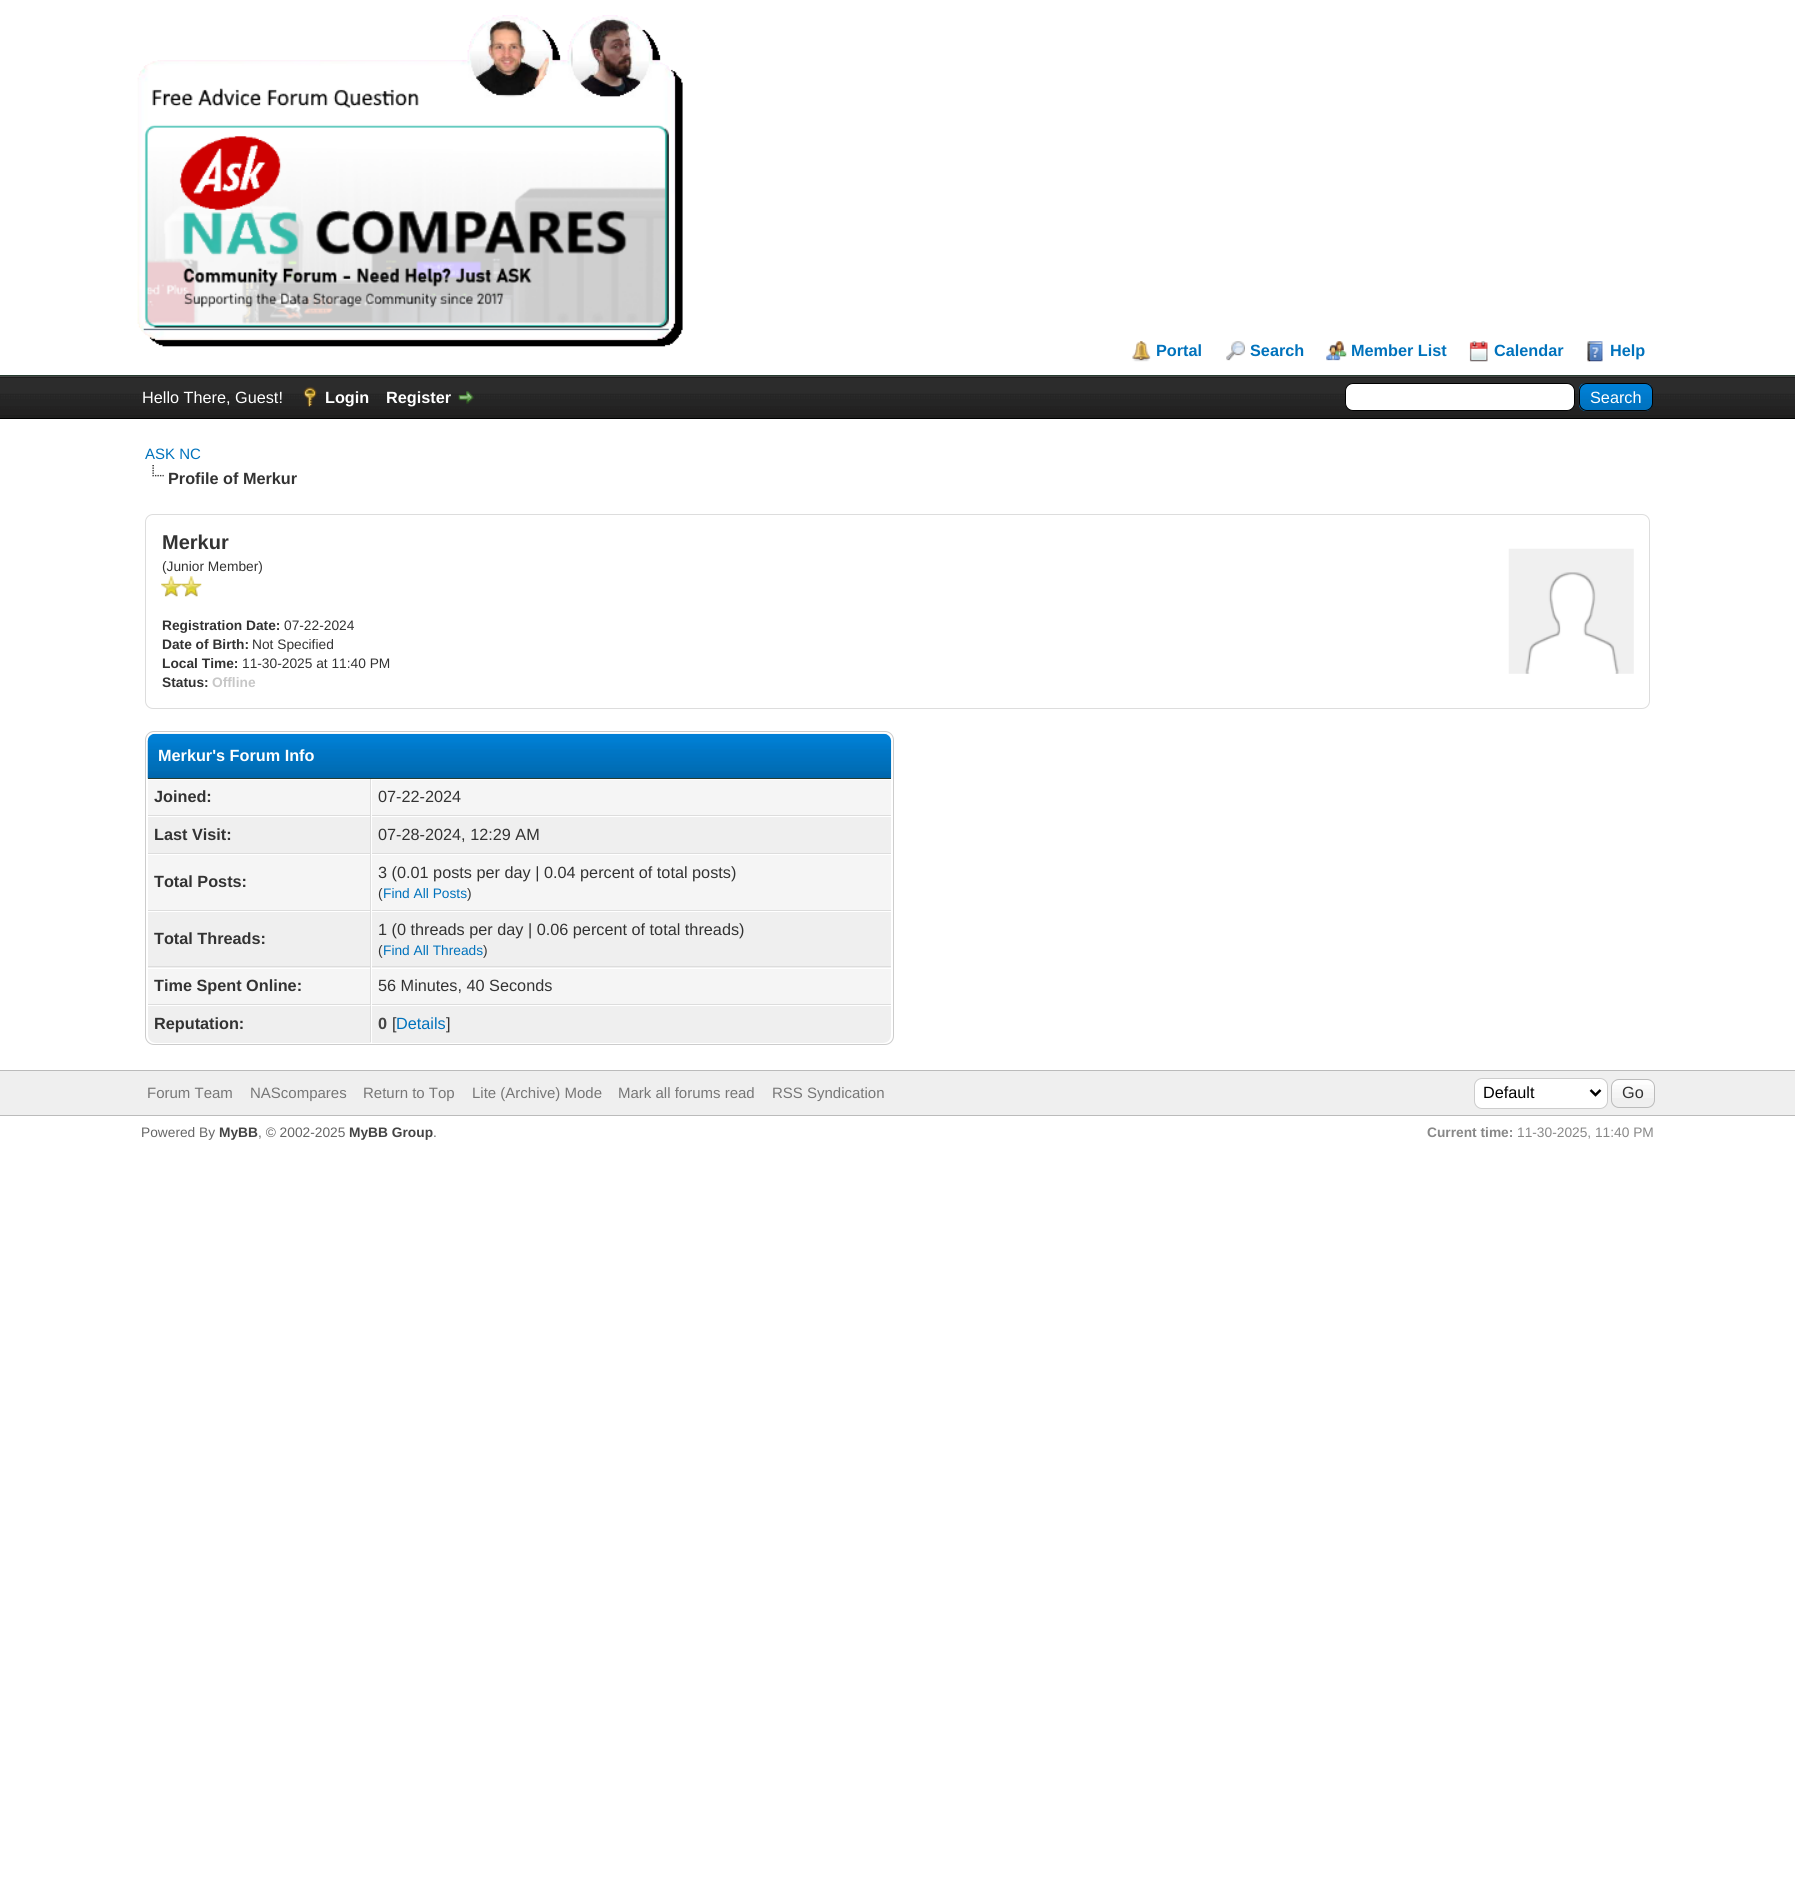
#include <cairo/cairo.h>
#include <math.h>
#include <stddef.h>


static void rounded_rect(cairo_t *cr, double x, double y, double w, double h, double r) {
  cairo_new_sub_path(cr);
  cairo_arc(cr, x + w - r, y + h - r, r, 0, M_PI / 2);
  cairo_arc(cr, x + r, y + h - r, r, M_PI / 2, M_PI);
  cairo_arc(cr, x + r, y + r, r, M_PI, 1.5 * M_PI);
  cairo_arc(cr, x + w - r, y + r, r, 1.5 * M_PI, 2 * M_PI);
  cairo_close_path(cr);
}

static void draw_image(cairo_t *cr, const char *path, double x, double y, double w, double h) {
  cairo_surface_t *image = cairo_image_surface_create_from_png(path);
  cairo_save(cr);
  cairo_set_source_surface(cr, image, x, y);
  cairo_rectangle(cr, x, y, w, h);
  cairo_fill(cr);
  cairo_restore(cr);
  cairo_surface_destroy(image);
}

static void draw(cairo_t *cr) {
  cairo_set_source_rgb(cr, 1, 1, 1);
  cairo_paint(cr);
  cairo_set_source_rgb(cr, 38 / 255.0, 60 / 255.0, 48 / 255.0);
  cairo_rectangle(cr, 0, 375, 1795, 1);
  cairo_fill(cr);
  draw_image(cr, "images/1.png", 137, 15, 546, 332);
  draw_image(cr, "images/2.png", 1132, 341, 19, 21);
  draw_image(cr, "images/3.png", 1226, 341, 19, 20);
  draw_image(cr, "images/4.png", 1326, 341, 21, 20);
  draw_image(cr, "images/5.png", 1469, 341, 19, 21);
  draw_image(cr, "images/6.png", 1587, 341, 16, 21);
  cairo_set_source_rgb(cr, 15 / 255.0, 15 / 255.0, 15 / 255.0);
  cairo_rectangle(cr, 0, 377, 1795, 1);
  cairo_fill(cr);
  draw_image(cr, "images/7.png", 0, 377, 1795, 41);
  cairo_set_source_rgb(cr, 68 / 255.0, 68 / 255.0, 68 / 255.0);
  cairo_rectangle(cr, 0, 376, 1795, 1);
  cairo_fill(cr);
  cairo_set_source_rgb(cr, 0, 0, 0);
  cairo_rectangle(cr, 0, 418, 1795, 1);
  cairo_fill(cr);
  draw_image(cr, "images/8.png", 303, 387, 14, 20);
  draw_image(cr, "images/9.png", 458, 391, 16, 13);
  cairo_set_source_rgb(cr, 1, 1, 1);
  rounded_rect(cr, 1345.5, 383.5, 229, 27, 7.5);
  cairo_fill_preserve(cr);
  cairo_set_source_rgb(cr, 0, 0, 0);
  cairo_set_line_width(cr, 1);
  cairo_stroke(cr);
  draw_image(cr, "images/10.png", 1578, 383, 75, 29);
  rounded_rect(cr, 1579.5, 383.5, 73, 27, 7.5);
  cairo_stroke(cr);
  draw_image(cr, "images/11.png", 152, 465, 12, 12);
  rounded_rect(cr, 145.5, 514.5, 1504, 194, 7.5);
  cairo_set_source_rgb(cr, 221 / 255.0, 221 / 255.0, 221 / 255.0);
  cairo_stroke(cr);
  draw_image(cr, "images/12.png", 161, 576, 21, 21);
  draw_image(cr, "images/13.png", 181, 576, 21, 21);
  draw_image(cr, "images/14.png", 1508, 548, 126, 126);
  rounded_rect(cr, 145.5, 731.5, 748, 313, 8.5);
  cairo_set_source_rgb(cr, 204 / 255.0, 204 / 255.0, 204 / 255.0);
  cairo_stroke(cr);
  draw_image(cr, "images/15.png", 147, 733, 745, 46);
  cairo_set_source_rgb(cr, 38 / 255.0, 60 / 255.0, 48 / 255.0);
  cairo_rectangle(cr, 148, 778, 743, 1);
  cairo_fill(cr);
  cairo_set_source_rgb(cr, 245 / 255.0, 245 / 255.0, 245 / 255.0);
  cairo_rectangle(cr, 148, 780, 222, 35);
  cairo_fill(cr);
  cairo_set_source_rgb(cr, 221 / 255.0, 221 / 255.0, 221 / 255.0);
  cairo_rectangle(cr, 370, 779, 1, 226);
  cairo_fill(cr);
  cairo_rectangle(cr, 148, 815, 743, 1);
  cairo_fill(cr);
  cairo_set_source_rgb(cr, 245 / 255.0, 245 / 255.0, 245 / 255.0);
  cairo_rectangle(cr, 372, 780, 519, 35);
  cairo_fill(cr);
  cairo_set_source_rgb(cr, 1, 1, 1);
  cairo_rectangle(cr, 371, 815, 1, 1);
  cairo_fill(cr);
  cairo_set_source_rgb(cr, 239 / 255.0, 239 / 255.0, 239 / 255.0);
  cairo_rectangle(cr, 148, 817, 222, 36);
  cairo_fill(cr);
  cairo_set_source_rgb(cr, 221 / 255.0, 221 / 255.0, 221 / 255.0);
  cairo_rectangle(cr, 148, 853, 743, 1);
  cairo_fill(cr);
  cairo_set_source_rgb(cr, 239 / 255.0, 239 / 255.0, 239 / 255.0);
  cairo_rectangle(cr, 372, 817, 519, 36);
  cairo_fill(cr);
  cairo_set_source_rgb(cr, 1, 1, 1);
  cairo_rectangle(cr, 371, 853, 1, 1);
  cairo_fill(cr);
  cairo_set_source_rgb(cr, 245 / 255.0, 245 / 255.0, 245 / 255.0);
  cairo_rectangle(cr, 148, 855, 222, 55);
  cairo_fill(cr);
  cairo_set_source_rgb(cr, 221 / 255.0, 221 / 255.0, 221 / 255.0);
  cairo_rectangle(cr, 148, 910, 743, 1);
  cairo_fill(cr);
  cairo_set_source_rgb(cr, 245 / 255.0, 245 / 255.0, 245 / 255.0);
  cairo_rectangle(cr, 372, 855, 519, 55);
  cairo_fill(cr);
  cairo_set_source_rgb(cr, 1, 1, 1);
  cairo_rectangle(cr, 371, 910, 1, 1);
  cairo_fill(cr);
  cairo_set_source_rgb(cr, 239 / 255.0, 239 / 255.0, 239 / 255.0);
  cairo_rectangle(cr, 148, 912, 222, 56);
  cairo_fill(cr);
  cairo_set_source_rgb(cr, 221 / 255.0, 221 / 255.0, 221 / 255.0);
  cairo_rectangle(cr, 148, 966, 223, 1);
  cairo_fill(cr);
  cairo_set_source_rgb(cr, 239 / 255.0, 239 / 255.0, 239 / 255.0);
  cairo_rectangle(cr, 372, 912, 519, 56);
  cairo_fill(cr);
  cairo_set_source_rgb(cr, 221 / 255.0, 221 / 255.0, 221 / 255.0);
  cairo_rectangle(cr, 371, 966, 520, 1);
  cairo_fill(cr);
  cairo_set_source_rgb(cr, 1, 1, 1);
  cairo_rectangle(cr, 371, 966, 1, 2);
  cairo_fill(cr);
  cairo_set_source_rgb(cr, 245 / 255.0, 245 / 255.0, 245 / 255.0);
  cairo_rectangle(cr, 148, 969, 222, 35);
  cairo_fill(cr);
  cairo_set_source_rgb(cr, 221 / 255.0, 221 / 255.0, 221 / 255.0);
  cairo_rectangle(cr, 148, 1004, 743, 1);
  cairo_fill(cr);
  cairo_set_source_rgb(cr, 245 / 255.0, 245 / 255.0, 245 / 255.0);
  cairo_rectangle(cr, 372, 969, 519, 35);
  cairo_fill(cr);
  cairo_set_source_rgb(cr, 1, 1, 1);
  cairo_rectangle(cr, 371, 1004, 1, 1);
  cairo_fill(cr);
  cairo_set_source_rgb(cr, 239 / 255.0, 239 / 255.0, 239 / 255.0);
  cairo_new_path(cr);
  cairo_move_to(cr, 148, 1005);
  cairo_line_to(cr, 371, 1005);
  cairo_line_to(cr, 371, 1043);
  cairo_line_to(cr, 156, 1043);
  cairo_curve_to(cr, 151.5, 1043, 148, 1039.5, 148, 1035);
  cairo_close_path(cr);
  cairo_fill(cr);
  cairo_set_source_rgb(cr, 1, 1, 1);
  cairo_new_path(cr);
  cairo_move_to(cr, 148, 1005);
  cairo_line_to(cr, 371, 1005);
  cairo_line_to(cr, 370, 1006);
  cairo_line_to(cr, 148, 1006);
  cairo_close_path(cr);
  cairo_fill(cr);
  cairo_set_source_rgb(cr, 221 / 255.0, 221 / 255.0, 221 / 255.0);
  cairo_new_path(cr);
  cairo_move_to(cr, 371, 1005);
  cairo_line_to(cr, 370, 1006);
  cairo_line_to(cr, 370, 1042);
  cairo_line_to(cr, 371, 1042);
  cairo_close_path(cr);
  cairo_fill(cr);
  cairo_set_source_rgb(cr, 239 / 255.0, 239 / 255.0, 239 / 255.0);
  cairo_new_path(cr);
  cairo_move_to(cr, 371, 1005);
  cairo_line_to(cr, 891, 1005);
  cairo_line_to(cr, 891, 1035);
  cairo_curve_to(cr, 891, 1039.5, 887.5, 1043, 883, 1043);
  cairo_line_to(cr, 371, 1043);
  cairo_close_path(cr);
  cairo_fill(cr);
  cairo_set_source_rgb(cr, 1, 1, 1);
  cairo_rectangle(cr, 371, 1005, 520, 1);
  cairo_fill(cr);
  cairo_rectangle(cr, 371, 1005, 1, 38);
  cairo_fill(cr);
  cairo_set_source_rgb(cr, 239 / 255.0, 239 / 255.0, 239 / 255.0);
  cairo_rectangle(cr, 0, 1071, 1795, 44);
  cairo_fill(cr);
  cairo_set_source_rgb(cr, 187 / 255.0, 187 / 255.0, 187 / 255.0);
  cairo_rectangle(cr, 0, 1070, 1795, 1);
  cairo_fill(cr);
  cairo_rectangle(cr, 0, 1115, 1795, 1);
  cairo_fill(cr);
  cairo_set_source_rgb(cr, 1, 1, 1);
  rounded_rect(cr, 1474.5, 1078.5, 133, 30, 7.5);
  cairo_fill_preserve(cr);
  cairo_set_source_rgb(cr, 204 / 255.0, 204 / 255.0, 204 / 255.0);
  cairo_stroke(cr);
  cairo_new_path(cr);
  cairo_move_to(cr, 1590.5, 1090);
  cairo_line_to(cr, 1595.5, 1095);
  cairo_line_to(cr, 1600.5, 1090);
  cairo_set_source_rgb(cr, 0, 0, 0);
  cairo_set_line_width(cr, 2.5);
  cairo_stroke(cr);
  draw_image(cr, "images/16.png", 1611, 1080, 44, 18);
  rounded_rect(cr, 1611.5, 1079.5, 43, 28, 7.5);
  cairo_set_source_rgb(cr, 187 / 255.0, 187 / 255.0, 187 / 255.0);
  cairo_set_line_width(cr, 1);
  cairo_stroke(cr);
  cairo_select_font_face(cr, "Liberation Sans", CAIRO_FONT_SLANT_NORMAL, CAIRO_FONT_WEIGHT_BOLD);
  cairo_set_font_size(cr, 16.25);
  cairo_set_source_rgb(cr, 0, 114 / 255.0, 188 / 255.0);
  cairo_move_to(cr, 1156, 356);
  cairo_show_text(cr, "Portal");
  cairo_move_to(cr, 1250, 356);
  cairo_show_text(cr, "Search");
  cairo_move_to(cr, 1351, 356);
  cairo_show_text(cr, "Member List");
  cairo_move_to(cr, 1494, 356);
  cairo_show_text(cr, "Calendar");
  cairo_move_to(cr, 1610, 356);
  cairo_show_text(cr, "Help");
  cairo_select_font_face(cr, "Liberation Sans", CAIRO_FONT_SLANT_NORMAL, CAIRO_FONT_WEIGHT_NORMAL);
  cairo_set_source_rgb(cr, 1, 1, 1);
  cairo_move_to(cr, 142, 403);
  cairo_show_text(cr, "Hello There, Guest!");
  cairo_select_font_face(cr, "Liberation Sans", CAIRO_FONT_SLANT_NORMAL, CAIRO_FONT_WEIGHT_BOLD);
  cairo_move_to(cr, 325, 403);
  cairo_show_text(cr, "Login");
  cairo_move_to(cr, 386, 403);
  cairo_show_text(cr, "Register");
  cairo_select_font_face(cr, "Liberation Sans", CAIRO_FONT_SLANT_NORMAL, CAIRO_FONT_WEIGHT_NORMAL);
  cairo_move_to(cr, 1590, 403);
  cairo_show_text(cr, "Search");
  cairo_set_font_size(cr, 15);
  cairo_set_source_rgb(cr, 0, 114 / 255.0, 188 / 255.0);
  cairo_move_to(cr, 145, 459);
  cairo_show_text(cr, "ASK NC");
  cairo_select_font_face(cr, "Liberation Sans", CAIRO_FONT_SLANT_NORMAL, CAIRO_FONT_WEIGHT_BOLD);
  cairo_set_font_size(cr, 16.25);
  cairo_set_source_rgb(cr, 51 / 255.0, 51 / 255.0, 51 / 255.0);
  cairo_move_to(cr, 168, 484);
  cairo_show_text(cr, "Profile of Merkur");
  cairo_set_font_size(cr, 20);
  cairo_move_to(cr, 162, 549);
  cairo_show_text(cr, "Merkur");
  cairo_select_font_face(cr, "Liberation Sans", CAIRO_FONT_SLANT_NORMAL, CAIRO_FONT_WEIGHT_NORMAL);
  cairo_set_font_size(cr, 13.75);
  cairo_move_to(cr, 162, 571);
  cairo_show_text(cr, "(Junior Member)");
  cairo_select_font_face(cr, "Liberation Sans", CAIRO_FONT_SLANT_NORMAL, CAIRO_FONT_WEIGHT_BOLD);
  cairo_move_to(cr, 162, 630);
  cairo_show_text(cr, "Registration Date:");
  cairo_select_font_face(cr, "Liberation Sans", CAIRO_FONT_SLANT_NORMAL, CAIRO_FONT_WEIGHT_NORMAL);
  cairo_move_to(cr, 284, 630);
  cairo_show_text(cr, "07-22-2024");
  cairo_select_font_face(cr, "Liberation Sans", CAIRO_FONT_SLANT_NORMAL, CAIRO_FONT_WEIGHT_BOLD);
  cairo_move_to(cr, 162, 649);
  cairo_show_text(cr, "Date of Birth:");
  cairo_select_font_face(cr, "Liberation Sans", CAIRO_FONT_SLANT_NORMAL, CAIRO_FONT_WEIGHT_NORMAL);
  cairo_move_to(cr, 252, 649);
  cairo_show_text(cr, "Not Specified");
  cairo_select_font_face(cr, "Liberation Sans", CAIRO_FONT_SLANT_NORMAL, CAIRO_FONT_WEIGHT_BOLD);
  cairo_move_to(cr, 162, 668);
  cairo_show_text(cr, "Local Time:");
  cairo_select_font_face(cr, "Liberation Sans", CAIRO_FONT_SLANT_NORMAL, CAIRO_FONT_WEIGHT_NORMAL);
  cairo_move_to(cr, 242, 668);
  cairo_show_text(cr, "11-30-2025 at 11:40 PM");
  cairo_select_font_face(cr, "Liberation Sans", CAIRO_FONT_SLANT_NORMAL, CAIRO_FONT_WEIGHT_BOLD);
  cairo_move_to(cr, 162, 687);
  cairo_show_text(cr, "Status:");
  cairo_set_source_rgb(cr, 199 / 255.0, 199 / 255.0, 199 / 255.0);
  cairo_move_to(cr, 212, 687);
  cairo_show_text(cr, "Offline");
  cairo_set_font_size(cr, 16.25);
  cairo_set_source_rgb(cr, 1, 1, 1);
  cairo_move_to(cr, 158, 761);
  cairo_show_text(cr, "Merkur's Forum Info");
  cairo_set_source_rgb(cr, 51 / 255.0, 51 / 255.0, 51 / 255.0);
  cairo_move_to(cr, 154, 802);
  cairo_show_text(cr, "Joined:");
  cairo_select_font_face(cr, "Liberation Sans", CAIRO_FONT_SLANT_NORMAL, CAIRO_FONT_WEIGHT_NORMAL);
  cairo_move_to(cr, 378, 802);
  cairo_show_text(cr, "07-22-2024");
  cairo_select_font_face(cr, "Liberation Sans", CAIRO_FONT_SLANT_NORMAL, CAIRO_FONT_WEIGHT_BOLD);
  cairo_move_to(cr, 154, 840);
  cairo_show_text(cr, "Last Visit:");
  cairo_select_font_face(cr, "Liberation Sans", CAIRO_FONT_SLANT_NORMAL, CAIRO_FONT_WEIGHT_NORMAL);
  cairo_move_to(cr, 378, 840);
  cairo_show_text(cr, "07-28-2024, 12:29 AM");
  cairo_select_font_face(cr, "Liberation Sans", CAIRO_FONT_SLANT_NORMAL, CAIRO_FONT_WEIGHT_BOLD);
  cairo_move_to(cr, 154, 887);
  cairo_show_text(cr, "Total Posts:");
  cairo_select_font_face(cr, "Liberation Sans", CAIRO_FONT_SLANT_NORMAL, CAIRO_FONT_WEIGHT_NORMAL);
  cairo_move_to(cr, 378, 878);
  cairo_show_text(cr, "3 (0.01 posts per day | 0.04 percent of total posts)");
  cairo_set_font_size(cr, 13.75);
  cairo_move_to(cr, 378, 898);
  cairo_show_text(cr, "(");
  cairo_set_source_rgb(cr, 0, 114 / 255.0, 188 / 255.0);
  cairo_move_to(cr, 383, 898);
  cairo_show_text(cr, "Find All Posts");
  cairo_set_source_rgb(cr, 51 / 255.0, 51 / 255.0, 51 / 255.0);
  cairo_move_to(cr, 467, 898);
  cairo_show_text(cr, ")");
  cairo_select_font_face(cr, "Liberation Sans", CAIRO_FONT_SLANT_NORMAL, CAIRO_FONT_WEIGHT_BOLD);
  cairo_set_font_size(cr, 16.25);
  cairo_move_to(cr, 154, 944);
  cairo_show_text(cr, "Total Threads:");
  cairo_select_font_face(cr, "Liberation Sans", CAIRO_FONT_SLANT_NORMAL, CAIRO_FONT_WEIGHT_NORMAL);
  cairo_move_to(cr, 378, 935);
  cairo_show_text(cr, "1 (0 threads per day | 0.06 percent of total threads)");
  cairo_set_font_size(cr, 13.75);
  cairo_move_to(cr, 378, 955);
  cairo_show_text(cr, "(");
  cairo_set_source_rgb(cr, 0, 114 / 255.0, 188 / 255.0);
  cairo_move_to(cr, 383, 955);
  cairo_show_text(cr, "Find All Threads");
  cairo_set_source_rgb(cr, 51 / 255.0, 51 / 255.0, 51 / 255.0);
  cairo_move_to(cr, 483, 955);
  cairo_show_text(cr, ")");
  cairo_select_font_face(cr, "Liberation Sans", CAIRO_FONT_SLANT_NORMAL, CAIRO_FONT_WEIGHT_BOLD);
  cairo_set_font_size(cr, 16.25);
  cairo_move_to(cr, 154, 991);
  cairo_show_text(cr, "Time Spent Online:");
  cairo_select_font_face(cr, "Liberation Sans", CAIRO_FONT_SLANT_NORMAL, CAIRO_FONT_WEIGHT_NORMAL);
  cairo_move_to(cr, 378, 991);
  cairo_show_text(cr, "56 Minutes, 40 Seconds");
  cairo_select_font_face(cr, "Liberation Sans", CAIRO_FONT_SLANT_NORMAL, CAIRO_FONT_WEIGHT_BOLD);
  cairo_move_to(cr, 154, 1029);
  cairo_show_text(cr, "Reputation:");
  cairo_set_source_rgb(cr, 68 / 255.0, 68 / 255.0, 68 / 255.0);
  cairo_move_to(cr, 378, 1029);
  cairo_show_text(cr, "0");
  cairo_select_font_face(cr, "Liberation Sans", CAIRO_FONT_SLANT_NORMAL, CAIRO_FONT_WEIGHT_NORMAL);
  cairo_set_source_rgb(cr, 51 / 255.0, 51 / 255.0, 51 / 255.0);
  cairo_move_to(cr, 392, 1029);
  cairo_show_text(cr, "[");
  cairo_set_source_rgb(cr, 0, 114 / 255.0, 188 / 255.0);
  cairo_move_to(cr, 396, 1029);
  cairo_show_text(cr, "Details");
  cairo_set_source_rgb(cr, 51 / 255.0, 51 / 255.0, 51 / 255.0);
  cairo_move_to(cr, 446, 1029);
  cairo_show_text(cr, "]");
  cairo_set_font_size(cr, 15);
  cairo_set_source_rgb(cr, 119 / 255.0, 119 / 255.0, 119 / 255.0);
  cairo_move_to(cr, 147, 1098);
  cairo_show_text(cr, "Forum Team");
  cairo_move_to(cr, 250, 1098);
  cairo_show_text(cr, "NAScompares");
  cairo_move_to(cr, 363, 1098);
  cairo_show_text(cr, "Return to Top");
  cairo_move_to(cr, 472, 1098);
  cairo_show_text(cr, "Lite (Archive) Mode");
  cairo_move_to(cr, 618, 1098);
  cairo_show_text(cr, "Mark all forums read");
  cairo_move_to(cr, 772, 1098);
  cairo_show_text(cr, "RSS Syndication");
  cairo_set_font_size(cr, 16.25);
  cairo_set_source_rgb(cr, 0, 0, 0);
  cairo_move_to(cr, 1483, 1098);
  cairo_show_text(cr, "Default");
  cairo_set_source_rgb(cr, 51 / 255.0, 51 / 255.0, 51 / 255.0);
  cairo_move_to(cr, 1622, 1098);
  cairo_show_text(cr, "Go");
  cairo_set_font_size(cr, 13.75);
  cairo_set_source_rgb(cr, 102 / 255.0, 102 / 255.0, 102 / 255.0);
  cairo_move_to(cr, 141, 1137);
  cairo_show_text(cr, "Powered By");
  cairo_select_font_face(cr, "Liberation Sans", CAIRO_FONT_SLANT_NORMAL, CAIRO_FONT_WEIGHT_BOLD);
  cairo_set_source_rgb(cr, 68 / 255.0, 68 / 255.0, 68 / 255.0);
  cairo_move_to(cr, 219, 1137);
  cairo_show_text(cr, "MyBB");
  cairo_select_font_face(cr, "Liberation Sans", CAIRO_FONT_SLANT_NORMAL, CAIRO_FONT_WEIGHT_NORMAL);
  cairo_set_source_rgb(cr, 102 / 255.0, 102 / 255.0, 102 / 255.0);
  cairo_move_to(cr, 258, 1137);
  cairo_show_text(cr, ", © 2002-2025");
  cairo_select_font_face(cr, "Liberation Sans", CAIRO_FONT_SLANT_NORMAL, CAIRO_FONT_WEIGHT_BOLD);
  cairo_set_source_rgb(cr, 68 / 255.0, 68 / 255.0, 68 / 255.0);
  cairo_move_to(cr, 349, 1137);
  cairo_show_text(cr, "MyBB Group");
  cairo_select_font_face(cr, "Liberation Sans", CAIRO_FONT_SLANT_NORMAL, CAIRO_FONT_WEIGHT_NORMAL);
  cairo_set_source_rgb(cr, 102 / 255.0, 102 / 255.0, 102 / 255.0);
  cairo_move_to(cr, 433, 1137);
  cairo_show_text(cr, ".");
  cairo_select_font_face(cr, "Liberation Sans", CAIRO_FONT_SLANT_NORMAL, CAIRO_FONT_WEIGHT_BOLD);
  cairo_set_source_rgb(cr, 136 / 255.0, 136 / 255.0, 136 / 255.0);
  cairo_move_to(cr, 1427, 1137);
  cairo_show_text(cr, "Current time:");
  cairo_select_font_face(cr, "Liberation Sans", CAIRO_FONT_SLANT_NORMAL, CAIRO_FONT_WEIGHT_NORMAL);
  cairo_move_to(cr, 1517, 1137);
  cairo_show_text(cr, "11-30-2025, 11:40 PM");
}

int main(void) {
  cairo_surface_t *surface = cairo_image_surface_create(CAIRO_FORMAT_RGB24, 1795, 1878);
  cairo_t *cr = cairo_create(surface);
  cairo_font_options_t *options = cairo_font_options_create();
  cairo_font_options_set_hint_metrics(options, CAIRO_HINT_METRICS_OFF);
  cairo_font_options_set_hint_style(options, CAIRO_HINT_STYLE_NONE);
  cairo_set_font_options(cr, options);
  cairo_set_miter_limit(cr, 4);
  draw(cr);
  cairo_surface_write_to_png(surface, "out.png");
  cairo_font_options_destroy(options);
  cairo_destroy(cr);
  cairo_surface_destroy(surface);
  return 0;
}
